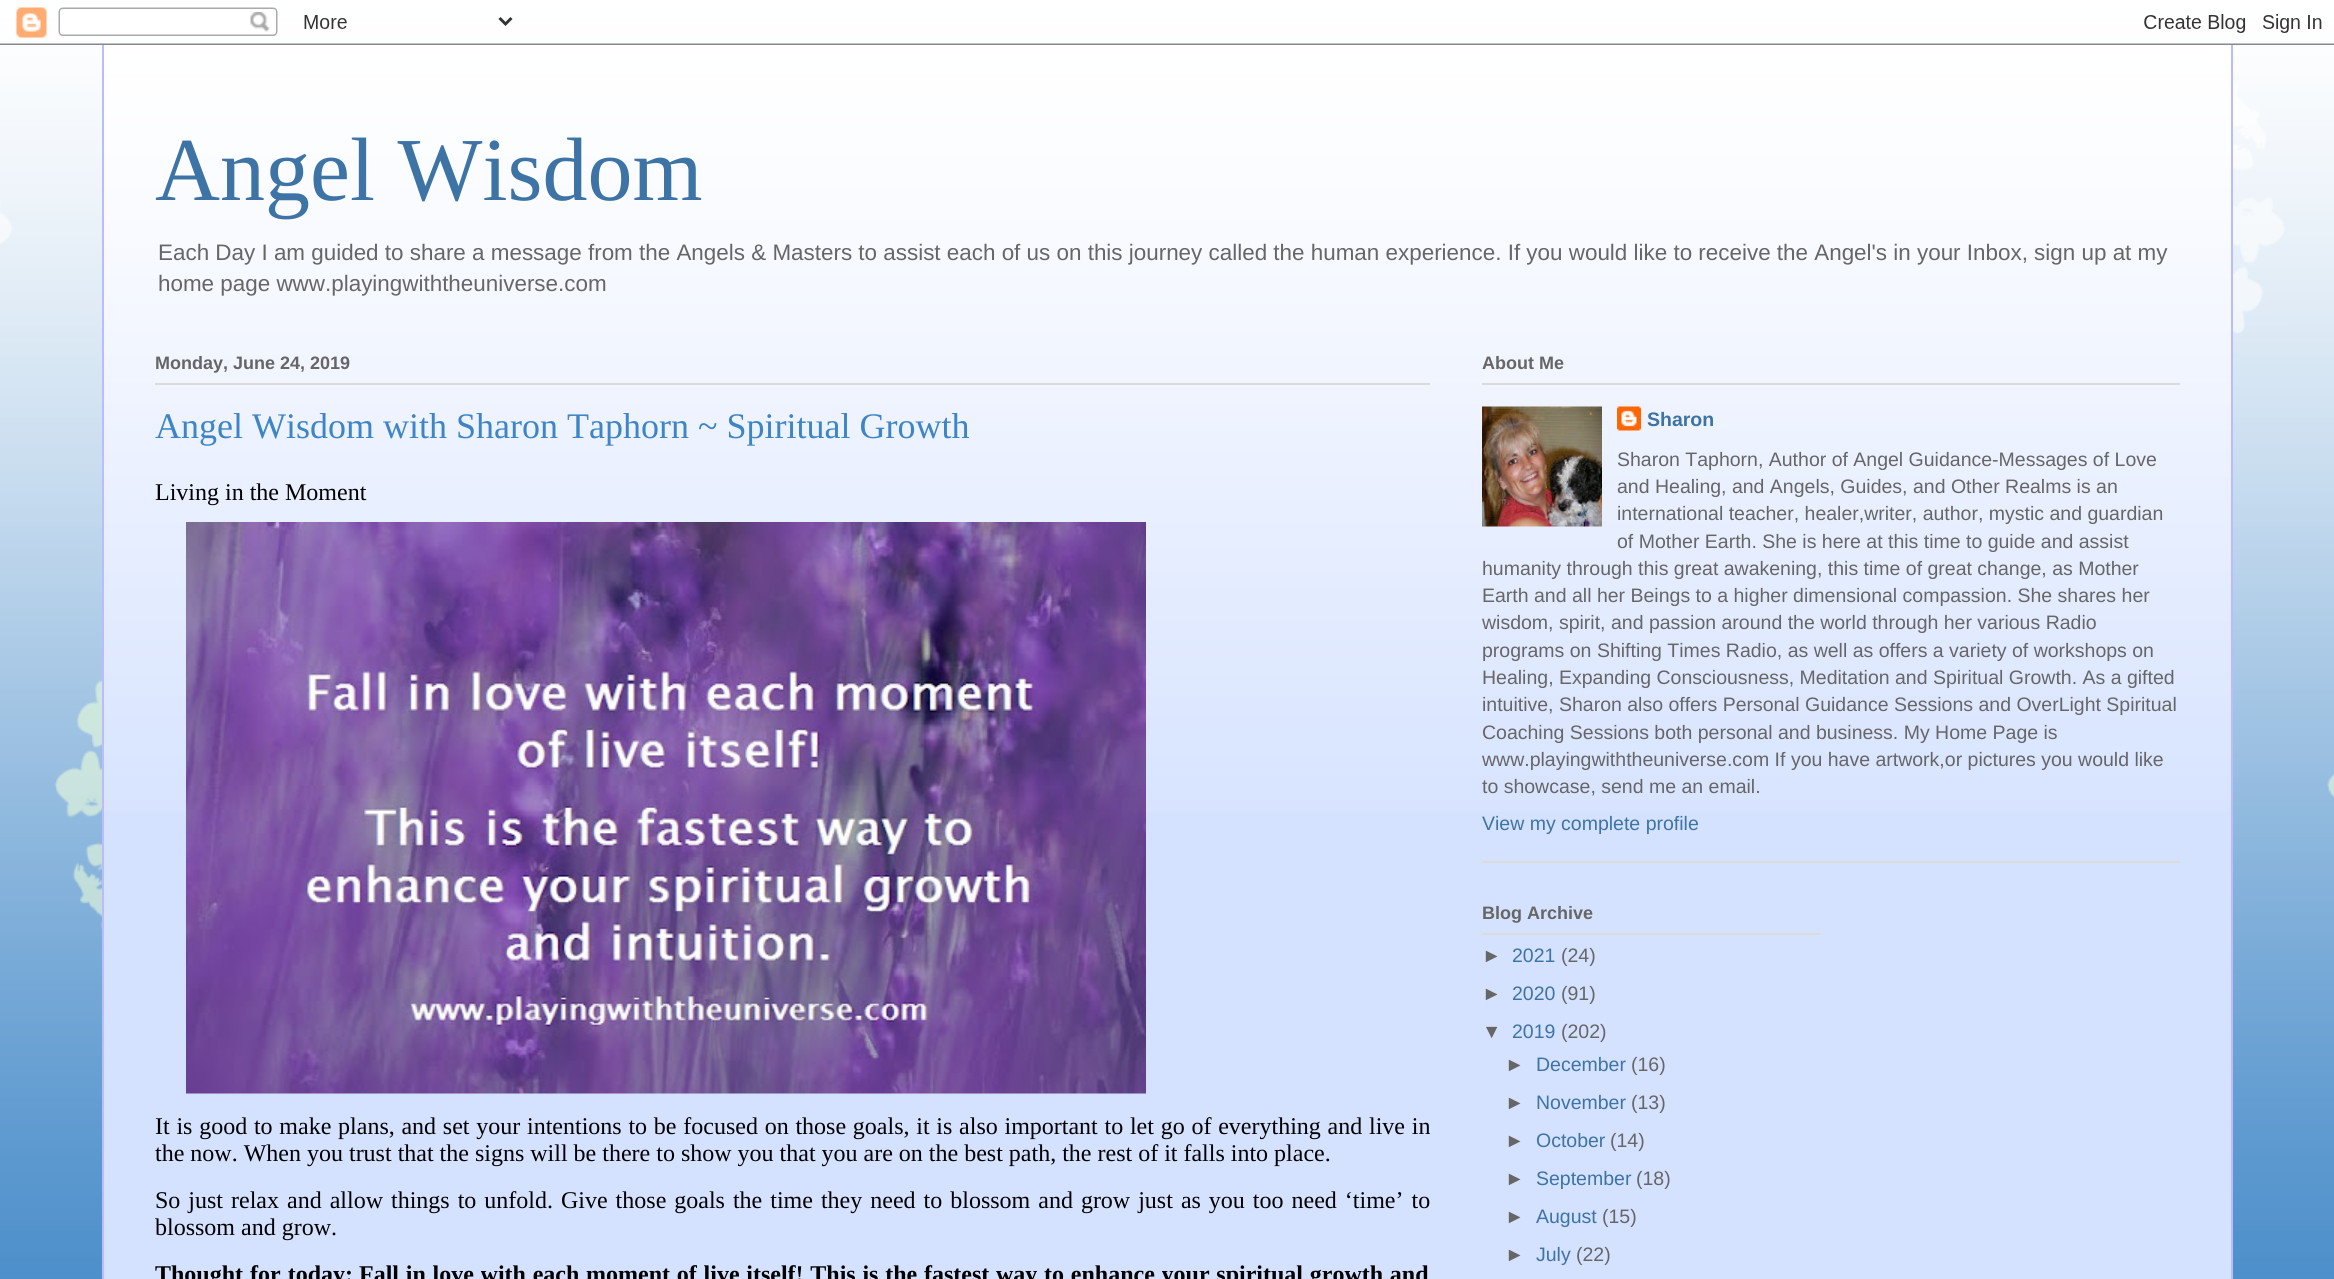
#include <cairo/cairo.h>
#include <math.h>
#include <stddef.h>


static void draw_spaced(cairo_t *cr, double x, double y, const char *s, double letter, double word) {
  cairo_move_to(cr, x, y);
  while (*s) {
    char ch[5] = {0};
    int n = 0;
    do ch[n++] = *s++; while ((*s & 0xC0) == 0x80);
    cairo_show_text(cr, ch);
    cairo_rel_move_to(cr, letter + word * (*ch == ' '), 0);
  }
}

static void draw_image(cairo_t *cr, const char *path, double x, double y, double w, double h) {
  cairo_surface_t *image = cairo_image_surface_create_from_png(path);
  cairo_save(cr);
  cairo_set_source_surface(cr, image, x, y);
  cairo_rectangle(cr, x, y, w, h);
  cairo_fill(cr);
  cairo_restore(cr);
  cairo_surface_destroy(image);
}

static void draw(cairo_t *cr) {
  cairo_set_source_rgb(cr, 61 / 255.0, 133 / 255.0, 198 / 255.0);
  cairo_paint(cr);
  draw_image(cr, "images/1.png", 0, 0, 2334, 1279);
  draw_image(cr, "images/2.png", 0, 7, 2334, 38);
  cairo_set_source_rgb(cr, 212 / 255.0, 225 / 255.0, 1);
  cairo_rectangle(cr, 104, 55, 2127, 1224);
  cairo_fill(cr);
  draw_image(cr, "images/3.png", 104, 45, 2127, 767);
  cairo_set_source_rgb(cr, 187 / 255.0, 187 / 255.0, 1);
  cairo_rectangle(cr, 2231, 45, 2, 1234);
  cairo_fill(cr);
  cairo_rectangle(cr, 102, 45, 2, 1234);
  cairo_fill(cr);
  cairo_set_source_rgb(cr, 219 / 255.0, 219 / 255.0, 219 / 255.0);
  cairo_rectangle(cr, 155, 383, 1275, 2);
  cairo_fill(cr);
  draw_image(cr, "images/4.png", 186, 522, 960, 572);
  cairo_rectangle(cr, 1482, 861, 698, 2);
  cairo_fill(cr);
  cairo_rectangle(cr, 1482, 383, 698, 2);
  cairo_fill(cr);
  draw_image(cr, "images/5.png", 1482, 406, 120, 121);
  draw_image(cr, "images/6.png", 1617, 406, 24, 25);
  cairo_rectangle(cr, 1482, 933, 338, 2);
  cairo_fill(cr);
  cairo_select_font_face(cr, "Liberation Serif", CAIRO_FONT_SLANT_NORMAL, CAIRO_FONT_WEIGHT_NORMAL);
  cairo_set_font_size(cr, 90);
  cairo_set_source_rgb(cr, 61 / 255.0, 116 / 255.0, 165 / 255.0);
  cairo_move_to(cr, 155, 200);
  cairo_show_text(cr, "Angel Wisdom");
  cairo_select_font_face(cr, "Liberation Sans", CAIRO_FONT_SLANT_NORMAL, CAIRO_FONT_WEIGHT_NORMAL);
  cairo_set_font_size(cr, 22.42);
  cairo_set_source_rgb(cr, 102 / 255.0, 102 / 255.0, 102 / 255.0);
  cairo_move_to(cr, 158, 260);
  cairo_show_text(cr, "Each Day I am guided to share a message from the Angels & Masters to assist each of us on this journey called the human experience. If you would like to receive the Angel's in your Inbox, sign up at my");
  cairo_move_to(cr, 158, 291);
  cairo_show_text(cr, "home page www.playingwiththeuniverse.com");
  cairo_select_font_face(cr, "Liberation Sans", CAIRO_FONT_SLANT_NORMAL, CAIRO_FONT_WEIGHT_BOLD);
  cairo_set_font_size(cr, 18);
  cairo_move_to(cr, 155, 369);
  cairo_show_text(cr, "Monday, June 24, 2019");
  cairo_select_font_face(cr, "Liberation Serif", CAIRO_FONT_SLANT_NORMAL, CAIRO_FONT_WEIGHT_NORMAL);
  cairo_set_font_size(cr, 36);
  cairo_set_source_rgb(cr, 61 / 255.0, 133 / 255.0, 198 / 255.0);
  cairo_move_to(cr, 155, 438);
  cairo_show_text(cr, "Angel Wisdom with Sharon Taphorn ~ Spiritual Growth");
  cairo_set_font_size(cr, 24);
  cairo_set_source_rgb(cr, 0, 0, 0);
  cairo_move_to(cr, 155, 500);
  cairo_show_text(cr, "Living in the Moment");
  draw_spaced(cr, 155, 1134, "It is good to make plans, and set your intentions to be focused on those goals, it is also important to let go of everything and live in", 0, 0.75);
  cairo_move_to(cr, 155, 1161);
  cairo_show_text(cr, "the now. When you trust that the signs will be there to show you that you are on the best path, the rest of it falls into place.");
  draw_spaced(cr, 155, 1208, "So just relax and allow things to unfold. Give those goals the time they need to blossom and grow just as you too need ‘time’ to", 0, 2);
  cairo_move_to(cr, 155, 1235);
  cairo_show_text(cr, "blossom and grow.");
  cairo_select_font_face(cr, "Liberation Serif", CAIRO_FONT_SLANT_NORMAL, CAIRO_FONT_WEIGHT_BOLD);
  draw_spaced(cr, 155, 1282, "Thought for today:", 0, 1);
  draw_spaced(cr, 359, 1282, "Fall in love with each moment of live itself! This is the fastest way to enhance your spiritual growth and", 0, 0.75);
  cairo_select_font_face(cr, "Liberation Sans", CAIRO_FONT_SLANT_NORMAL, CAIRO_FONT_WEIGHT_BOLD);
  cairo_set_font_size(cr, 18);
  cairo_set_source_rgb(cr, 102 / 255.0, 102 / 255.0, 102 / 255.0);
  cairo_move_to(cr, 1482, 369);
  cairo_show_text(cr, "About Me");
  cairo_set_font_size(cr, 19.5);
  cairo_set_source_rgb(cr, 61 / 255.0, 116 / 255.0, 165 / 255.0);
  cairo_move_to(cr, 1647, 426);
  cairo_show_text(cr, "Sharon");
  cairo_select_font_face(cr, "Liberation Sans", CAIRO_FONT_SLANT_NORMAL, CAIRO_FONT_WEIGHT_NORMAL);
  cairo_set_source_rgb(cr, 102 / 255.0, 102 / 255.0, 102 / 255.0);
  cairo_move_to(cr, 1617, 466);
  cairo_show_text(cr, "Sharon Taphorn, Author of Angel Guidance-Messages of Love");
  cairo_move_to(cr, 1617, 493);
  cairo_show_text(cr, "and Healing, and Angels, Guides, and Other Realms is an");
  cairo_move_to(cr, 1617, 520);
  cairo_show_text(cr, "international teacher, healer,writer, author, mystic and guardian");
  cairo_move_to(cr, 1617, 548);
  cairo_show_text(cr, "of Mother Earth. She is here at this time to guide and assist");
  cairo_move_to(cr, 1482, 575);
  cairo_show_text(cr, "humanity through this great awakening, this time of great change, as Mother");
  cairo_move_to(cr, 1482, 602);
  cairo_show_text(cr, "Earth and all her Beings to a higher dimensional compassion. She shares her");
  cairo_move_to(cr, 1482, 629);
  cairo_show_text(cr, "wisdom, spirit, and passion around the world through her various Radio");
  cairo_move_to(cr, 1482, 657);
  cairo_show_text(cr, "programs on Shifting Times Radio, as well as offers a variety of workshops on");
  cairo_move_to(cr, 1482, 684);
  cairo_show_text(cr, "Healing, Expanding Consciousness, Meditation and Spiritual Growth. As a gifted");
  cairo_move_to(cr, 1482, 711);
  cairo_show_text(cr, "intuitive, Sharon also offers Personal Guidance Sessions and OverLight Spiritual");
  cairo_move_to(cr, 1482, 739);
  cairo_show_text(cr, "Coaching Sessions both personal and business. My Home Page is");
  cairo_move_to(cr, 1482, 766);
  cairo_show_text(cr, "www.playingwiththeuniverse.com If you have artwork,or pictures you would like");
  cairo_move_to(cr, 1482, 793);
  cairo_show_text(cr, "to showcase, send me an email.");
  cairo_set_source_rgb(cr, 61 / 255.0, 116 / 255.0, 165 / 255.0);
  cairo_move_to(cr, 1482, 830);
  cairo_show_text(cr, "View my complete profile");
  cairo_select_font_face(cr, "Liberation Sans", CAIRO_FONT_SLANT_NORMAL, CAIRO_FONT_WEIGHT_BOLD);
  cairo_set_font_size(cr, 18);
  cairo_set_source_rgb(cr, 102 / 255.0, 102 / 255.0, 102 / 255.0);
  cairo_move_to(cr, 1482, 919);
  cairo_show_text(cr, "Blog Archive");
  cairo_select_font_face(cr, "Liberation Sans", CAIRO_FONT_SLANT_NORMAL, CAIRO_FONT_WEIGHT_NORMAL);
  cairo_set_font_size(cr, 19.5);
  cairo_move_to(cr, 1482, 962);
  cairo_show_text(cr, "►");
  cairo_set_source_rgb(cr, 61 / 255.0, 116 / 255.0, 165 / 255.0);
  cairo_move_to(cr, 1512, 962);
  cairo_show_text(cr, "2021");
  cairo_set_source_rgb(cr, 102 / 255.0, 102 / 255.0, 102 / 255.0);
  cairo_move_to(cr, 1561, 962);
  cairo_show_text(cr, "(24)");
  cairo_move_to(cr, 1482, 1000);
  cairo_show_text(cr, "►");
  cairo_set_source_rgb(cr, 61 / 255.0, 116 / 255.0, 165 / 255.0);
  cairo_move_to(cr, 1512, 1000);
  cairo_show_text(cr, "2020");
  cairo_set_source_rgb(cr, 102 / 255.0, 102 / 255.0, 102 / 255.0);
  cairo_move_to(cr, 1561, 1000);
  cairo_show_text(cr, "(91)");
  cairo_move_to(cr, 1482, 1038);
  cairo_show_text(cr, "▼");
  cairo_set_source_rgb(cr, 61 / 255.0, 116 / 255.0, 165 / 255.0);
  cairo_move_to(cr, 1512, 1038);
  cairo_show_text(cr, "2019");
  cairo_set_source_rgb(cr, 102 / 255.0, 102 / 255.0, 102 / 255.0);
  cairo_move_to(cr, 1561, 1038);
  cairo_show_text(cr, "(202)");
  cairo_move_to(cr, 1505, 1071);
  cairo_show_text(cr, "►");
  cairo_set_source_rgb(cr, 61 / 255.0, 116 / 255.0, 165 / 255.0);
  cairo_move_to(cr, 1536, 1071);
  cairo_show_text(cr, "December");
  cairo_set_source_rgb(cr, 102 / 255.0, 102 / 255.0, 102 / 255.0);
  cairo_move_to(cr, 1631, 1071);
  cairo_show_text(cr, "(16)");
  cairo_move_to(cr, 1505, 1109);
  cairo_show_text(cr, "►");
  cairo_set_source_rgb(cr, 61 / 255.0, 116 / 255.0, 165 / 255.0);
  cairo_move_to(cr, 1536, 1109);
  cairo_show_text(cr, "November");
  cairo_set_source_rgb(cr, 102 / 255.0, 102 / 255.0, 102 / 255.0);
  cairo_move_to(cr, 1631, 1109);
  cairo_show_text(cr, "(13)");
  cairo_move_to(cr, 1505, 1147);
  cairo_show_text(cr, "►");
  cairo_set_source_rgb(cr, 61 / 255.0, 116 / 255.0, 165 / 255.0);
  cairo_move_to(cr, 1536, 1147);
  cairo_show_text(cr, "October");
  cairo_set_source_rgb(cr, 102 / 255.0, 102 / 255.0, 102 / 255.0);
  cairo_move_to(cr, 1610, 1147);
  cairo_show_text(cr, "(14)");
  cairo_move_to(cr, 1505, 1185);
  cairo_show_text(cr, "►");
  cairo_set_source_rgb(cr, 61 / 255.0, 116 / 255.0, 165 / 255.0);
  cairo_move_to(cr, 1536, 1185);
  cairo_show_text(cr, "September");
  cairo_set_source_rgb(cr, 102 / 255.0, 102 / 255.0, 102 / 255.0);
  cairo_move_to(cr, 1636, 1185);
  cairo_show_text(cr, "(18)");
  cairo_move_to(cr, 1505, 1223);
  cairo_show_text(cr, "►");
  cairo_set_source_rgb(cr, 61 / 255.0, 116 / 255.0, 165 / 255.0);
  cairo_move_to(cr, 1536, 1223);
  cairo_show_text(cr, "August");
  cairo_set_source_rgb(cr, 102 / 255.0, 102 / 255.0, 102 / 255.0);
  cairo_move_to(cr, 1602, 1223);
  cairo_show_text(cr, "(15)");
  cairo_move_to(cr, 1505, 1261);
  cairo_show_text(cr, "►");
  cairo_set_source_rgb(cr, 61 / 255.0, 116 / 255.0, 165 / 255.0);
  cairo_move_to(cr, 1536, 1261);
  cairo_show_text(cr, "July");
  cairo_set_source_rgb(cr, 102 / 255.0, 102 / 255.0, 102 / 255.0);
  cairo_move_to(cr, 1576, 1261);
  cairo_show_text(cr, "(22)");
}

int main(void) {
  cairo_surface_t *surface = cairo_image_surface_create(CAIRO_FORMAT_RGB24, 2334, 1279);
  cairo_t *cr = cairo_create(surface);
  cairo_font_options_t *options = cairo_font_options_create();
  cairo_font_options_set_hint_metrics(options, CAIRO_HINT_METRICS_OFF);
  cairo_font_options_set_hint_style(options, CAIRO_HINT_STYLE_NONE);
  cairo_set_font_options(cr, options);
  cairo_set_miter_limit(cr, 4);
  draw(cr);
  cairo_surface_write_to_png(surface, "out.png");
  cairo_font_options_destroy(options);
  cairo_destroy(cr);
  cairo_surface_destroy(surface);
  return 0;
}
